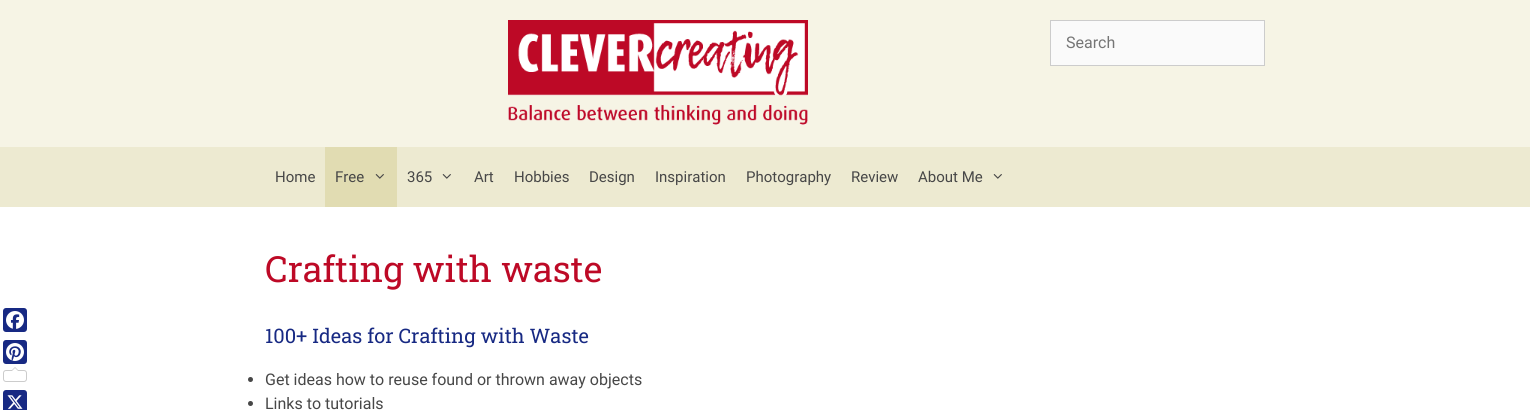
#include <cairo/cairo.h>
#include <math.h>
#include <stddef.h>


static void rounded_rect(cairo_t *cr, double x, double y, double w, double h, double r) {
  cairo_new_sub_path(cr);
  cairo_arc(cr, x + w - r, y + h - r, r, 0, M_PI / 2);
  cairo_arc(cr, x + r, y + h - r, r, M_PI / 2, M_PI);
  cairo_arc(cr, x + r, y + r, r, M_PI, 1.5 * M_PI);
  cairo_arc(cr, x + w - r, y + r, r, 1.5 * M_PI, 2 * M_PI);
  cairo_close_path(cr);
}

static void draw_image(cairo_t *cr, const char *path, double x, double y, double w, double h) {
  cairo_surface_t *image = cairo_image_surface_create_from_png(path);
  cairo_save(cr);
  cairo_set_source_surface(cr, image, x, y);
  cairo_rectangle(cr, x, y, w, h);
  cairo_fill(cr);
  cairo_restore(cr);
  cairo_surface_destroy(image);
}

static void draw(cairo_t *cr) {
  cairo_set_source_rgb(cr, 1, 1, 1);
  cairo_paint(cr);
  cairo_set_source_rgb(cr, 246 / 255.0, 244 / 255.0, 229 / 255.0);
  cairo_rectangle(cr, 0, 0, 1530, 147);
  cairo_fill(cr);
  draw_image(cr, "images/1.png", 508, 20, 300, 105);
  cairo_set_source_rgb(cr, 250 / 255.0, 250 / 255.0, 250 / 255.0);
  cairo_rectangle(cr, 1050.5, 20.5, 214, 45);
  cairo_fill_preserve(cr);
  cairo_set_source_rgb(cr, 204 / 255.0, 204 / 255.0, 204 / 255.0);
  cairo_set_line_width(cr, 1);
  cairo_stroke(cr);
  cairo_set_source_rgb(cr, 237 / 255.0, 234 / 255.0, 209 / 255.0);
  cairo_rectangle(cr, 0, 147, 1530, 60);
  cairo_fill(cr);
  cairo_set_source_rgb(cr, 225 / 255.0, 220 / 255.0, 178 / 255.0);
  cairo_rectangle(cr, 325, 147, 72, 60);
  cairo_fill(cr);
  draw_image(cr, "images/2.png", 375, 174, 9, 5);
  draw_image(cr, "images/3.png", 442, 174, 9, 5);
  draw_image(cr, "images/3.png", 993, 174, 9, 5);
  cairo_set_source_rgb(cr, 23 / 255.0, 41 / 255.0, 131 / 255.0);
  rounded_rect(cr, 3, 308, 24, 24, 3);
  cairo_fill(cr);
  draw_image(cr, "images/4.png", 6, 311, 18, 18);
  rounded_rect(cr, 3, 340, 24, 24, 3);
  cairo_fill(cr);
  draw_image(cr, "images/5.png", 6, 343, 18, 18);
  rounded_rect(cr, 3.5, 370.5, 23, 11, 2.5);
  cairo_set_source_rgb(cr, 204 / 255.0, 204 / 255.0, 204 / 255.0);
  cairo_stroke(cr);
  cairo_new_path(cr);
  cairo_move_to(cr, 19, 371);
  cairo_line_to(cr, 11, 371);
  cairo_line_to(cr, 15, 367);
  cairo_close_path(cr);
  cairo_fill(cr);
  cairo_set_source_rgb(cr, 1, 1, 1);
  cairo_new_path(cr);
  cairo_move_to(cr, 19, 372);
  cairo_line_to(cr, 11, 372);
  cairo_line_to(cr, 15, 368);
  cairo_close_path(cr);
  cairo_fill(cr);
  cairo_set_source_rgb(cr, 23 / 255.0, 41 / 255.0, 131 / 255.0);
  rounded_rect(cr, 3, 390, 24, 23, 3);
  cairo_fill(cr);
  draw_image(cr, "images/6.png", 7, 395, 16, 14);
  cairo_set_source_rgb(cr, 71 / 255.0, 71 / 255.0, 71 / 255.0);
  cairo_arc(cr, 250.5, 379.5, 2.5, 0, 2 * M_PI);
  cairo_fill(cr);
  cairo_arc(cr, 250.5, 403.5, 2.5, 0, 2 * M_PI);
  cairo_fill(cr);
  cairo_select_font_face(cr, "Roboto", CAIRO_FONT_SLANT_NORMAL, CAIRO_FONT_WEIGHT_NORMAL);
  cairo_set_font_size(cr, 16);
  cairo_set_source_rgb(cr, 117 / 255.0, 117 / 255.0, 117 / 255.0);
  cairo_move_to(cr, 1066, 48);
  cairo_show_text(cr, "Search");
  cairo_set_font_size(cr, 15);
  cairo_set_source_rgb(cr, 71 / 255.0, 71 / 255.0, 71 / 255.0);
  cairo_move_to(cr, 275, 182);
  cairo_show_text(cr, "Home");
  cairo_move_to(cr, 335, 182);
  cairo_show_text(cr, "Free");
  cairo_move_to(cr, 407, 182);
  cairo_show_text(cr, "365");
  cairo_move_to(cr, 474, 182);
  cairo_show_text(cr, "Art");
  cairo_move_to(cr, 514, 182);
  cairo_show_text(cr, "Hobbies");
  cairo_move_to(cr, 589, 182);
  cairo_show_text(cr, "Design");
  cairo_move_to(cr, 655, 182);
  cairo_show_text(cr, "Inspiration");
  cairo_move_to(cr, 746, 182);
  cairo_show_text(cr, "Photography");
  cairo_move_to(cr, 851, 182);
  cairo_show_text(cr, "Review");
  cairo_move_to(cr, 918, 182);
  cairo_show_text(cr, "About Me");
  cairo_select_font_face(cr, "Roboto Slab", CAIRO_FONT_SLANT_NORMAL, CAIRO_FONT_WEIGHT_NORMAL);
  cairo_set_font_size(cr, 36);
  cairo_set_source_rgb(cr, 189 / 255.0, 9 / 255.0, 38 / 255.0);
  cairo_move_to(cr, 265, 282);
  cairo_show_text(cr, "Crafting with waste");
  cairo_set_font_size(cr, 20);
  cairo_set_source_rgb(cr, 23 / 255.0, 41 / 255.0, 131 / 255.0);
  cairo_move_to(cr, 265, 343);
  cairo_show_text(cr, "100+ Ideas for Crafting with Waste");
  cairo_select_font_face(cr, "Roboto", CAIRO_FONT_SLANT_NORMAL, CAIRO_FONT_WEIGHT_NORMAL);
  cairo_set_font_size(cr, 16);
  cairo_set_source_rgb(cr, 71 / 255.0, 71 / 255.0, 71 / 255.0);
  cairo_move_to(cr, 265, 385);
  cairo_show_text(cr, "Get ideas how to reuse found or thrown away objects");
  cairo_move_to(cr, 265, 409);
  cairo_show_text(cr, "Links to tutorials");
}

int main(void) {
  cairo_surface_t *surface = cairo_image_surface_create(CAIRO_FORMAT_RGB24, 1530, 410);
  cairo_t *cr = cairo_create(surface);
  cairo_font_options_t *options = cairo_font_options_create();
  cairo_font_options_set_hint_metrics(options, CAIRO_HINT_METRICS_OFF);
  cairo_font_options_set_hint_style(options, CAIRO_HINT_STYLE_NONE);
  cairo_set_font_options(cr, options);
  cairo_set_miter_limit(cr, 4);
  draw(cr);
  cairo_surface_write_to_png(surface, "out.png");
  cairo_font_options_destroy(options);
  cairo_destroy(cr);
  cairo_surface_destroy(surface);
  return 0;
}
